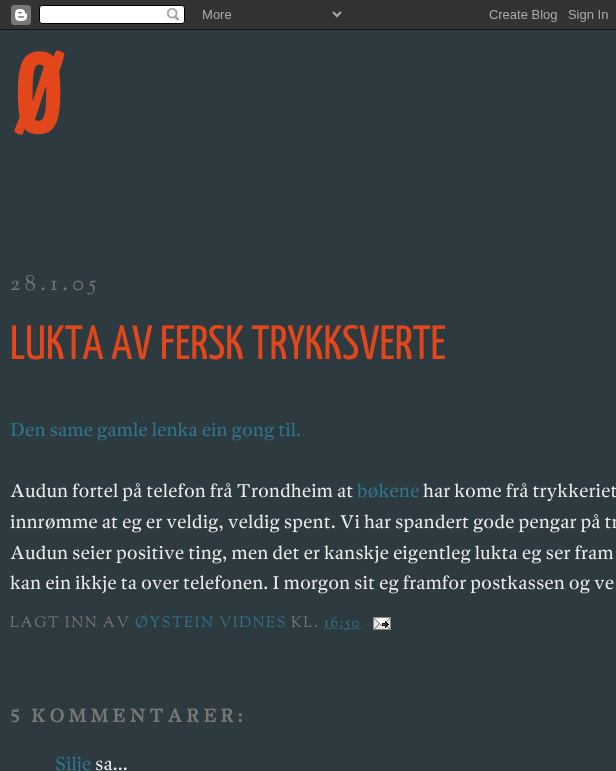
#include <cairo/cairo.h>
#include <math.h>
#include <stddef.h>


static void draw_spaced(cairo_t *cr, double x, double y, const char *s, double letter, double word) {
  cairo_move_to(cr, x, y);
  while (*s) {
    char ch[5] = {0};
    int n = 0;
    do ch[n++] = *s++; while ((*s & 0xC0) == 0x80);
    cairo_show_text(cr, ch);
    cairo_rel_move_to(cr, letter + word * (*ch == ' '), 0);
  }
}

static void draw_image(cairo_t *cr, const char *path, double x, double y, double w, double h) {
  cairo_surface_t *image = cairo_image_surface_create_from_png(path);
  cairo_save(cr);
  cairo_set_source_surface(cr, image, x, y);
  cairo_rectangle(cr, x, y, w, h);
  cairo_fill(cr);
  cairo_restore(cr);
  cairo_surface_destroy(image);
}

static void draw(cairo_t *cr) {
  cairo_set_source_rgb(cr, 45 / 255.0, 59 / 255.0, 64 / 255.0);
  cairo_paint(cr);
  draw_image(cr, "images/1.png", 0, 0, 616, 30);
  cairo_new_path(cr);
  cairo_move_to(cr, 323.5, 628.5);
  cairo_line_to(cr, 360.5, 628.5);
  cairo_set_source_rgb(cr, 47 / 255.0, 116 / 255.0, 142 / 255.0);
  cairo_set_line_width(cr, 1);
  cairo_set_dash(cr, (double[]){1, 1}, 2, 0);
  cairo_stroke(cr);
  draw_image(cr, "images/2.png", 373, 617, 18, 13);
  cairo_select_font_face(cr, "Yanone Kaffeesatz ExtraLight", CAIRO_FONT_SLANT_NORMAL, CAIRO_FONT_WEIGHT_NORMAL);
  cairo_set_font_size(cr, 115);
  cairo_set_source_rgb(cr, 228 / 255.0, 70 / 255.0, 27 / 255.0);
  draw_spaced(cr, 15, 133, "Ø", 23, 0);
  cairo_select_font_face(cr, "OFL Sorts Mill Goudy TT Medium", CAIRO_FONT_SLANT_NORMAL, CAIRO_FONT_WEIGHT_NORMAL);
  cairo_set_font_size(cr, 22);
  cairo_set_source_rgb(cr, 119 / 255.0, 119 / 255.0, 119 / 255.0);
  draw_spaced(cr, 10, 290, "28.1.05", 4.5, 0);
  cairo_select_font_face(cr, "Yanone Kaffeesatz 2 ExtraLight", CAIRO_FONT_SLANT_NORMAL, CAIRO_FONT_WEIGHT_NORMAL);
  cairo_set_font_size(cr, 48);
  cairo_set_source_rgb(cr, 228 / 255.0, 70 / 255.0, 27 / 255.0);
  cairo_move_to(cr, 10, 359);
  cairo_show_text(cr, "LUKTA AV FERSK TRYKKSVERTE");
  cairo_select_font_face(cr, "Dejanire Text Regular", CAIRO_FONT_SLANT_NORMAL, CAIRO_FONT_WEIGHT_NORMAL);
  cairo_set_font_size(cr, 19.2);
  cairo_set_source_rgb(cr, 47 / 255.0, 116 / 255.0, 142 / 255.0);
  cairo_move_to(cr, 10, 436);
  cairo_show_text(cr, "Den same gamle lenka ein gong til.");
  cairo_set_source_rgb(cr, 235 / 255.0, 234 / 255.0, 234 / 255.0);
  cairo_move_to(cr, 10, 497);
  cairo_show_text(cr, "Audun fortel på telefon frå Trondheim at");
  cairo_set_source_rgb(cr, 47 / 255.0, 116 / 255.0, 142 / 255.0);
  cairo_move_to(cr, 357, 497);
  cairo_show_text(cr, "bøkene");
  cairo_set_source_rgb(cr, 235 / 255.0, 234 / 255.0, 234 / 255.0);
  cairo_move_to(cr, 423, 497);
  cairo_show_text(cr, "har kome frå trykkeriet");
  cairo_move_to(cr, 10, 528);
  cairo_show_text(cr, "innrømme at eg er veldig, veldig spent. Vi har spandert gode pengar på tr");
  cairo_move_to(cr, 10, 559);
  cairo_show_text(cr, "Audun seier positive ting, men det er kanskje eigentleg lukta eg ser fram");
  cairo_move_to(cr, 10, 589);
  cairo_show_text(cr, "kan ein ikkje ta over telefonen. I morgon sit eg framfor postkassen og ve");
  cairo_select_font_face(cr, "OFL Sorts Mill Goudy TT Medium", CAIRO_FONT_SLANT_NORMAL, CAIRO_FONT_WEIGHT_NORMAL);
  cairo_set_font_size(cr, 15);
  cairo_set_source_rgb(cr, 119 / 255.0, 119 / 255.0, 119 / 255.0);
  draw_spaced(cr, 10, 627, "LAGT INN AV", 1.5, 0);
  cairo_set_source_rgb(cr, 47 / 255.0, 116 / 255.0, 142 / 255.0);
  draw_spaced(cr, 135, 627, "ØYSTEIN VIDNES", 1.5, 0);
  cairo_set_source_rgb(cr, 119 / 255.0, 119 / 255.0, 119 / 255.0);
  draw_spaced(cr, 291, 627, "KL.", 1.5, 0);
  cairo_set_source_rgb(cr, 47 / 255.0, 116 / 255.0, 142 / 255.0);
  draw_spaced(cr, 324, 627, "16:50", 1.5, 0);
  cairo_select_font_face(cr, "Dejanire Text Regular", CAIRO_FONT_SLANT_NORMAL, CAIRO_FONT_WEIGHT_BOLD);
  cairo_set_font_size(cr, 19.2);
  cairo_set_source_rgb(cr, 119 / 255.0, 119 / 255.0, 119 / 255.0);
  draw_spaced(cr, 10, 722, "5 KOMMENTARER:", 3.8, 0);
  cairo_select_font_face(cr, "Dejanire Text Regular", CAIRO_FONT_SLANT_NORMAL, CAIRO_FONT_WEIGHT_NORMAL);
  cairo_set_source_rgb(cr, 47 / 255.0, 116 / 255.0, 142 / 255.0);
  cairo_move_to(cr, 55, 770);
  cairo_show_text(cr, "Silje");
  cairo_set_source_rgb(cr, 235 / 255.0, 234 / 255.0, 234 / 255.0);
  cairo_move_to(cr, 95, 770);
  cairo_show_text(cr, "sa...");
}

int main(void) {
  cairo_surface_t *surface = cairo_image_surface_create(CAIRO_FORMAT_RGB24, 616, 771);
  cairo_t *cr = cairo_create(surface);
  cairo_font_options_t *options = cairo_font_options_create();
  cairo_font_options_set_hint_metrics(options, CAIRO_HINT_METRICS_OFF);
  cairo_font_options_set_hint_style(options, CAIRO_HINT_STYLE_NONE);
  cairo_set_font_options(cr, options);
  cairo_set_miter_limit(cr, 4);
  draw(cr);
  cairo_surface_write_to_png(surface, "out.png");
  cairo_font_options_destroy(options);
  cairo_destroy(cr);
  cairo_surface_destroy(surface);
  return 0;
}
